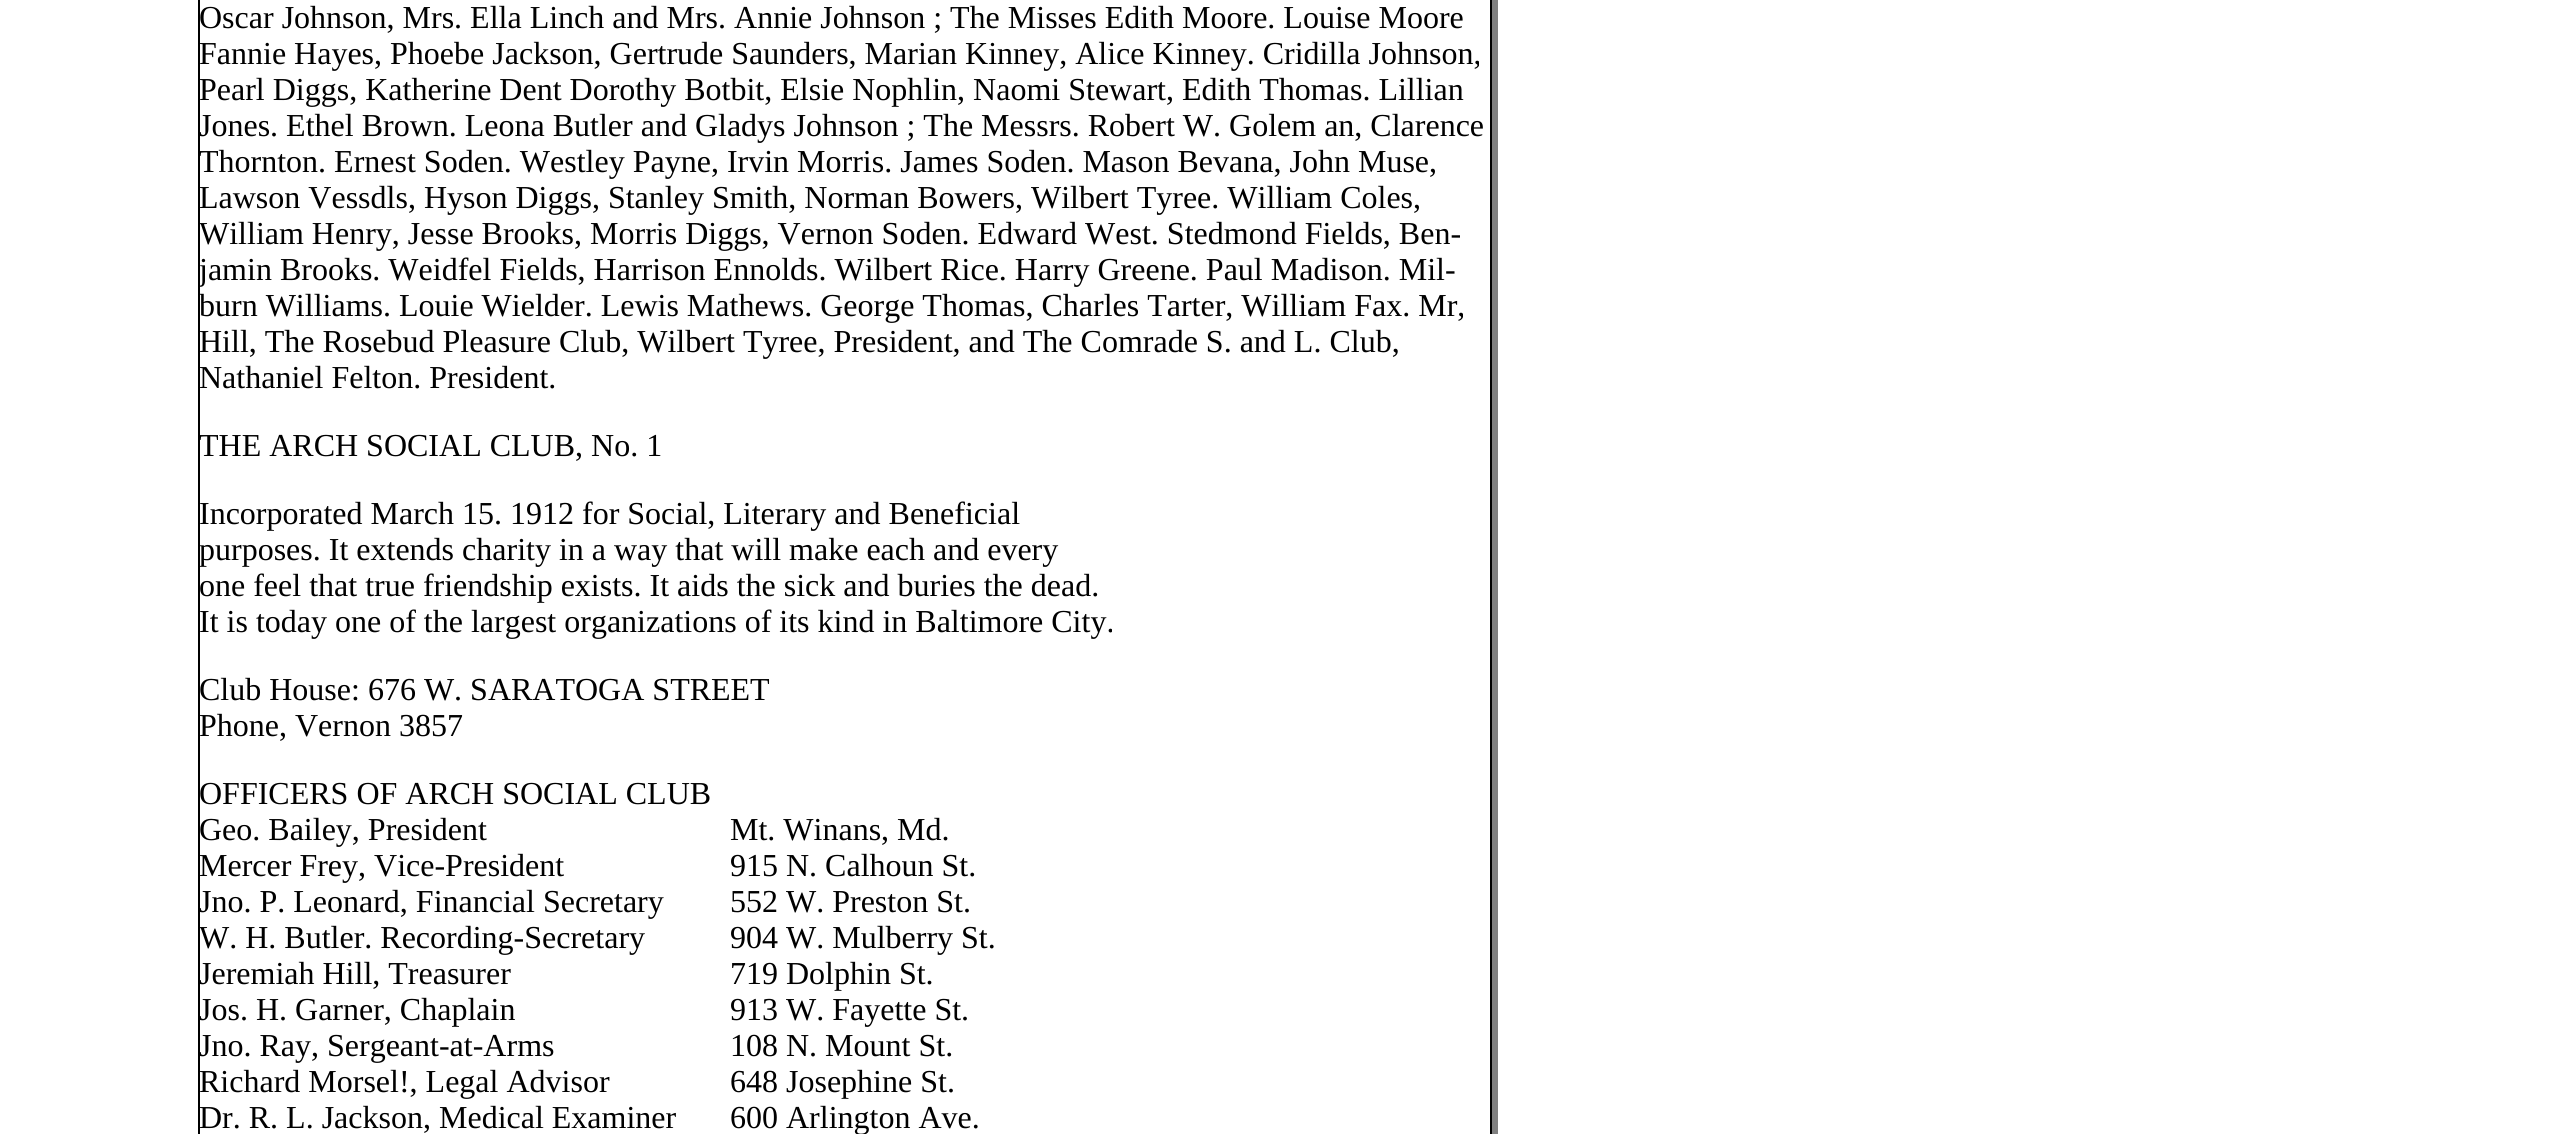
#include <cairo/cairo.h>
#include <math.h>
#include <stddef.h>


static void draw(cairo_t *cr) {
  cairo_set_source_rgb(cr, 1, 1, 1);
  cairo_paint(cr);
  cairo_set_source_rgb(cr, 0, 0, 0);
  cairo_rectangle(cr, 198, 0, 2, 1134);
  cairo_fill(cr);
  cairo_rectangle(cr, 1490, 0, 2, 1134);
  cairo_fill(cr);
  cairo_set_source_rgb(cr, 128 / 255.0, 128 / 255.0, 128 / 255.0);
  cairo_rectangle(cr, 1492, 0, 6, 1134);
  cairo_fill(cr);
  cairo_select_font_face(cr, "Liberation Serif", CAIRO_FONT_SLANT_NORMAL, CAIRO_FONT_WEIGHT_NORMAL);
  cairo_set_font_size(cr, 32);
  cairo_set_source_rgb(cr, 0, 0, 0);
  cairo_move_to(cr, 199, 28);
  cairo_show_text(cr, "Oscar Johnson, Mrs. Ella Linch and Mrs. Annie Johnson ; The Misses Edith Moore. Louise Moore");
  cairo_move_to(cr, 199, 64);
  cairo_show_text(cr, "Fannie Hayes, Phoebe Jackson, Gertrude Saunders, Marian Kinney, Alice Kinney. Cridilla Johnson,");
  cairo_move_to(cr, 199, 100);
  cairo_show_text(cr, "Pearl Diggs, Katherine Dent Dorothy Botbit, Elsie Nophlin, Naomi Stewart, Edith Thomas. Lillian");
  cairo_move_to(cr, 199, 136);
  cairo_show_text(cr, "Jones. Ethel Brown. Leona Butler and Gladys Johnson ; The Messrs. Robert W. Golem an, Clarence");
  cairo_move_to(cr, 199, 172);
  cairo_show_text(cr, "Thornton. Ernest Soden. Westley Payne, Irvin Morris. James Soden. Mason Bevana, John Muse,");
  cairo_move_to(cr, 199, 208);
  cairo_show_text(cr, "Lawson Vessdls, Hyson Diggs, Stanley Smith, Norman Bowers, Wilbert Tyree. William Coles,");
  cairo_move_to(cr, 199, 244);
  cairo_show_text(cr, "William Henry, Jesse Brooks, Morris Diggs, Vernon Soden. Edward West. Stedmond Fields, Ben-");
  cairo_move_to(cr, 199, 280);
  cairo_show_text(cr, "jamin Brooks. Weidfel Fields, Harrison Ennolds. Wilbert Rice. Harry Greene. Paul Madison. Mil-");
  cairo_move_to(cr, 199, 316);
  cairo_show_text(cr, "burn Williams. Louie Wielder. Lewis Mathews. George Thomas, Charles Tarter, William Fax. Mr,");
  cairo_move_to(cr, 199, 352);
  cairo_show_text(cr, "Hill, The Rosebud Pleasure Club, Wilbert Tyree, President, and The Comrade S. and L. Club,");
  cairo_move_to(cr, 199, 388);
  cairo_show_text(cr, "Nathaniel Felton. President.");
  cairo_move_to(cr, 199, 456);
  cairo_show_text(cr, "THE ARCH SOCIAL CLUB, No. 1");
  cairo_move_to(cr, 199, 524);
  cairo_show_text(cr, "Incorporated March 15. 1912 for Social, Literary and Beneficial");
  cairo_move_to(cr, 199, 560);
  cairo_show_text(cr, "purposes. It extends charity in a way that will make each and every");
  cairo_move_to(cr, 199, 596);
  cairo_show_text(cr, "one feel that true friendship exists. It aids the sick and buries the dead.");
  cairo_move_to(cr, 199, 632);
  cairo_show_text(cr, "It is today one of the largest organizations of its kind in Baltimore City.");
  cairo_move_to(cr, 199, 700);
  cairo_show_text(cr, "Club House: 676 W. SARATOGA STREET");
  cairo_move_to(cr, 199, 736);
  cairo_show_text(cr, "Phone, Vernon 3857");
  cairo_move_to(cr, 199, 804);
  cairo_show_text(cr, "OFFICERS OF ARCH SOCIAL CLUB");
  cairo_move_to(cr, 199, 840);
  cairo_show_text(cr, "Geo. Bailey, President");
  cairo_move_to(cr, 199, 876);
  cairo_show_text(cr, "Mercer Frey, Vice-President");
  cairo_move_to(cr, 199, 912);
  cairo_show_text(cr, "Jno. P. Leonard, Financial Secretary");
  cairo_move_to(cr, 199, 948);
  cairo_show_text(cr, "W. H. Butler. Recording-Secretary");
  cairo_move_to(cr, 199, 984);
  cairo_show_text(cr, "Jeremiah Hill, Treasurer");
  cairo_move_to(cr, 199, 1020);
  cairo_show_text(cr, "Jos. H. Garner, Chaplain");
  cairo_move_to(cr, 199, 1056);
  cairo_show_text(cr, "Jno. Ray, Sergeant-at-Arms");
  cairo_move_to(cr, 199, 1092);
  cairo_show_text(cr, "Richard Morsel!, Legal Advisor");
  cairo_move_to(cr, 199, 1128);
  cairo_show_text(cr, "Dr. R. L. Jackson, Medical Examiner");
  cairo_move_to(cr, 730, 840);
  cairo_show_text(cr, "Mt. Winans, Md.");
  cairo_move_to(cr, 730, 876);
  cairo_show_text(cr, "915 N. Calhoun St.");
  cairo_move_to(cr, 730, 912);
  cairo_show_text(cr, "552 W. Preston St.");
  cairo_move_to(cr, 730, 948);
  cairo_show_text(cr, "904 W. Mulberry St.");
  cairo_move_to(cr, 730, 984);
  cairo_show_text(cr, "719 Dolphin St.");
  cairo_move_to(cr, 730, 1020);
  cairo_show_text(cr, "913 W. Fayette St.");
  cairo_move_to(cr, 730, 1056);
  cairo_show_text(cr, "108 N. Mount St.");
  cairo_move_to(cr, 730, 1092);
  cairo_show_text(cr, "648 Josephine St.");
  cairo_move_to(cr, 730, 1128);
  cairo_show_text(cr, "600 Arlington Ave.");
}

int main(void) {
  cairo_surface_t *surface = cairo_image_surface_create(CAIRO_FORMAT_RGB24, 2560, 1134);
  cairo_t *cr = cairo_create(surface);
  cairo_font_options_t *options = cairo_font_options_create();
  cairo_font_options_set_hint_metrics(options, CAIRO_HINT_METRICS_OFF);
  cairo_font_options_set_hint_style(options, CAIRO_HINT_STYLE_NONE);
  cairo_set_font_options(cr, options);
  cairo_set_miter_limit(cr, 4);
  draw(cr);
  cairo_surface_write_to_png(surface, "out.png");
  cairo_font_options_destroy(options);
  cairo_destroy(cr);
  cairo_surface_destroy(surface);
  return 0;
}
